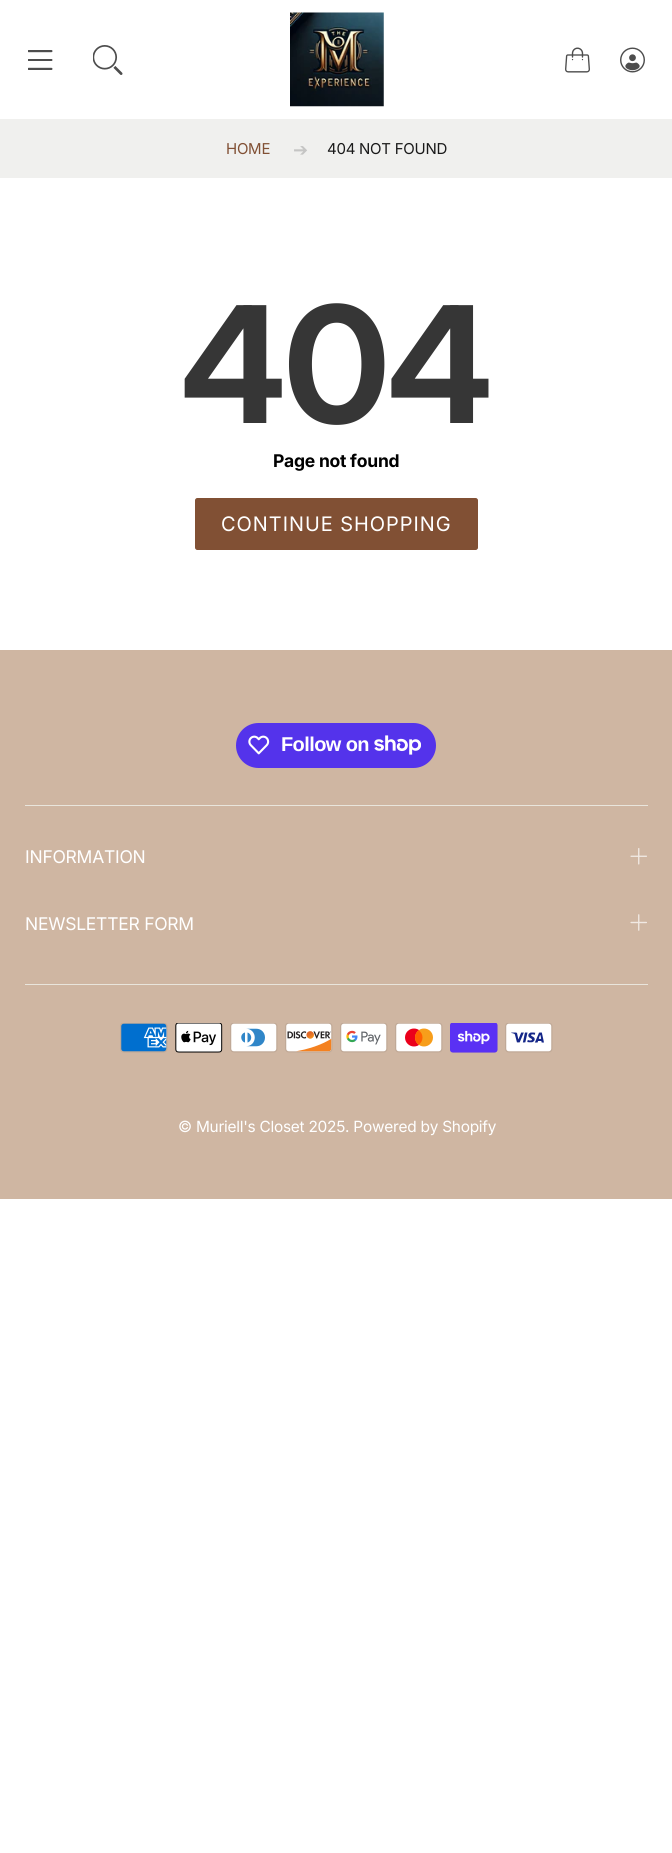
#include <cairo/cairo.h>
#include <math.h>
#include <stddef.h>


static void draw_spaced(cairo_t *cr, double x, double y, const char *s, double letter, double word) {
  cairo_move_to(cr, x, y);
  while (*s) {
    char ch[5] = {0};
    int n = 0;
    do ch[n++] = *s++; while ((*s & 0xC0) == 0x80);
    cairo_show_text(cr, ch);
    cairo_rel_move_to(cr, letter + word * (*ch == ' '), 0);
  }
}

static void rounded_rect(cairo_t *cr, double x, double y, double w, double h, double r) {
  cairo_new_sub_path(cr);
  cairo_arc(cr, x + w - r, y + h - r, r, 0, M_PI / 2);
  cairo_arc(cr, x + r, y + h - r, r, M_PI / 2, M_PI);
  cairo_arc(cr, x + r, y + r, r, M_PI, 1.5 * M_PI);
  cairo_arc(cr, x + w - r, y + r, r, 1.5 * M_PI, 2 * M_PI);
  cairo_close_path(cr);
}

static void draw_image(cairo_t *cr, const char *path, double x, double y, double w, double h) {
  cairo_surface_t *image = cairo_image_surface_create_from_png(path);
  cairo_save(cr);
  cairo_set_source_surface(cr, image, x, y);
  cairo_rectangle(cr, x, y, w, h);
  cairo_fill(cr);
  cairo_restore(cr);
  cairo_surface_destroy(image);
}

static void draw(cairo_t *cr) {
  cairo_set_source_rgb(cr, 1, 1, 1);
  cairo_paint(cr);
  draw_image(cr, "images/1.png", 28, 50, 25, 20);
  draw_image(cr, "images/2.png", 93, 45, 30, 30);
  draw_image(cr, "images/3.png", 290, 12, 94, 95);
  draw_image(cr, "images/4.png", 565, 47, 25, 26);
  draw_image(cr, "images/5.png", 620, 47, 25, 26);
  cairo_set_source_rgb(cr, 240 / 255.0, 240 / 255.0, 238 / 255.0);
  cairo_rectangle(cr, 0, 119, 672, 59);
  cairo_fill(cr);
  cairo_set_source_rgb(cr, 129 / 255.0, 80 / 255.0, 52 / 255.0);
  rounded_rect(cr, 195.5, 498.5, 282, 51, 2);
  cairo_fill_preserve(cr);
  cairo_set_line_width(cr, 1);
  cairo_stroke(cr);
  cairo_set_source_rgb(cr, 207 / 255.0, 182 / 255.0, 162 / 255.0);
  cairo_rectangle(cr, 0, 650, 672, 549);
  cairo_fill(cr);
  cairo_set_source_rgb(cr, 233 / 255.0, 229 / 255.0, 220 / 255.0);
  cairo_rectangle(cr, 25, 805, 623, 1);
  cairo_fill(cr);
  cairo_set_source_rgb(cr, 84 / 255.0, 51 / 255.0, 235 / 255.0);
  rounded_rect(cr, 236, 723, 200, 45, 22.5);
  cairo_fill(cr);
  draw_image(cr, "images/6.png", 248, 735, 22, 20);
  draw_image(cr, "images/7.png", 374, 735, 47, 20);
  draw_image(cr, "images/8.png", 630, 848, 17, 17);
  draw_image(cr, "images/9.png", 630, 914, 17, 17);
  cairo_set_source_rgb(cr, 233 / 255.0, 229 / 255.0, 220 / 255.0);
  cairo_rectangle(cr, 25, 984, 623, 1);
  cairo_fill(cr);
  draw_image(cr, "images/10.png", 120, 1023, 48, 30);
  draw_image(cr, "images/11.png", 175, 1023, 48, 30);
  draw_image(cr, "images/12.png", 230, 1023, 48, 30);
  draw_image(cr, "images/13.png", 285, 1023, 48, 30);
  draw_image(cr, "images/14.png", 340, 1023, 48, 30);
  draw_image(cr, "images/15.png", 395, 1023, 48, 30);
  draw_image(cr, "images/16.png", 450, 1023, 48, 30);
  draw_image(cr, "images/17.png", 505, 1023, 48, 30);
  cairo_select_font_face(cr, "Inter", CAIRO_FONT_SLANT_NORMAL, CAIRO_FONT_WEIGHT_NORMAL);
  cairo_set_font_size(cr, 15);
  cairo_set_source_rgb(cr, 129 / 255.0, 80 / 255.0, 52 / 255.0);
  draw_spaced(cr, 226, 154, "HOME", -0.25, 0);
  cairo_select_font_face(cr, "DejaVu Sans", CAIRO_FONT_SLANT_NORMAL, CAIRO_FONT_WEIGHT_NORMAL);
  cairo_set_font_size(cr, 18);
  cairo_set_source_rgb(cr, 197 / 255.0, 197 / 255.0, 196 / 255.0);
  draw_spaced(cr, 293, 156, "➔", -0.25, 0);
  cairo_select_font_face(cr, "Inter", CAIRO_FONT_SLANT_NORMAL, CAIRO_FONT_WEIGHT_NORMAL);
  cairo_set_font_size(cr, 15);
  cairo_set_source_rgb(cr, 26 / 255.0, 26 / 255.0, 26 / 255.0);
  draw_spaced(cr, 327, 154, "404 NOT FOUND", -0.25, 0);
  cairo_select_font_face(cr, "Inter", CAIRO_FONT_SLANT_NORMAL, CAIRO_FONT_WEIGHT_BOLD);
  cairo_set_font_size(cr, 162);
  cairo_set_source_rgb(cr, 54 / 255.0, 54 / 255.0, 54 / 255.0);
  draw_spaced(cr, 180, 423, "404", -2.5, 0);
  cairo_select_font_face(cr, "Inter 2", CAIRO_FONT_SLANT_NORMAL, CAIRO_FONT_WEIGHT_BOLD);
  cairo_set_font_size(cr, 17.5);
  cairo_set_source_rgb(cr, 0, 0, 0);
  draw_spaced(cr, 273, 467, "Page not found", -0.25, 0);
  cairo_select_font_face(cr, "Inter 2", CAIRO_FONT_SLANT_NORMAL, CAIRO_FONT_WEIGHT_NORMAL);
  cairo_set_font_size(cr, 20);
  cairo_set_source_rgb(cr, 1, 1, 1);
  draw_spaced(cr, 221, 531, "CONTINUE SHOPPING", 1, 0);
  cairo_select_font_face(cr, "Liberation Sans", CAIRO_FONT_SLANT_NORMAL, CAIRO_FONT_WEIGHT_BOLD);
  draw_spaced(cr, 281, 751, "Follow on", -0.6, 0);
  cairo_select_font_face(cr, "Inter", CAIRO_FONT_SLANT_NORMAL, CAIRO_FONT_WEIGHT_NORMAL);
  cairo_set_font_size(cr, 17.5);
  draw_spaced(cr, 25, 863, "INFORMATION", -0.25, 0);
  draw_spaced(cr, 25, 930, "NEWSLETTER FORM", -0.25, 0);
  cairo_set_font_size(cr, 15.4);
  draw_spaced(cr, 178, 1132, "© Muriell's Closet 2025. Powered by Shopify", -0.25, 0);
}

int main(void) {
  cairo_surface_t *surface = cairo_image_surface_create(CAIRO_FORMAT_RGB24, 672, 1853);
  cairo_t *cr = cairo_create(surface);
  cairo_font_options_t *options = cairo_font_options_create();
  cairo_font_options_set_hint_metrics(options, CAIRO_HINT_METRICS_OFF);
  cairo_font_options_set_hint_style(options, CAIRO_HINT_STYLE_NONE);
  cairo_set_font_options(cr, options);
  cairo_set_miter_limit(cr, 4);
  draw(cr);
  cairo_surface_write_to_png(surface, "out.png");
  cairo_font_options_destroy(options);
  cairo_destroy(cr);
  cairo_surface_destroy(surface);
  return 0;
}
